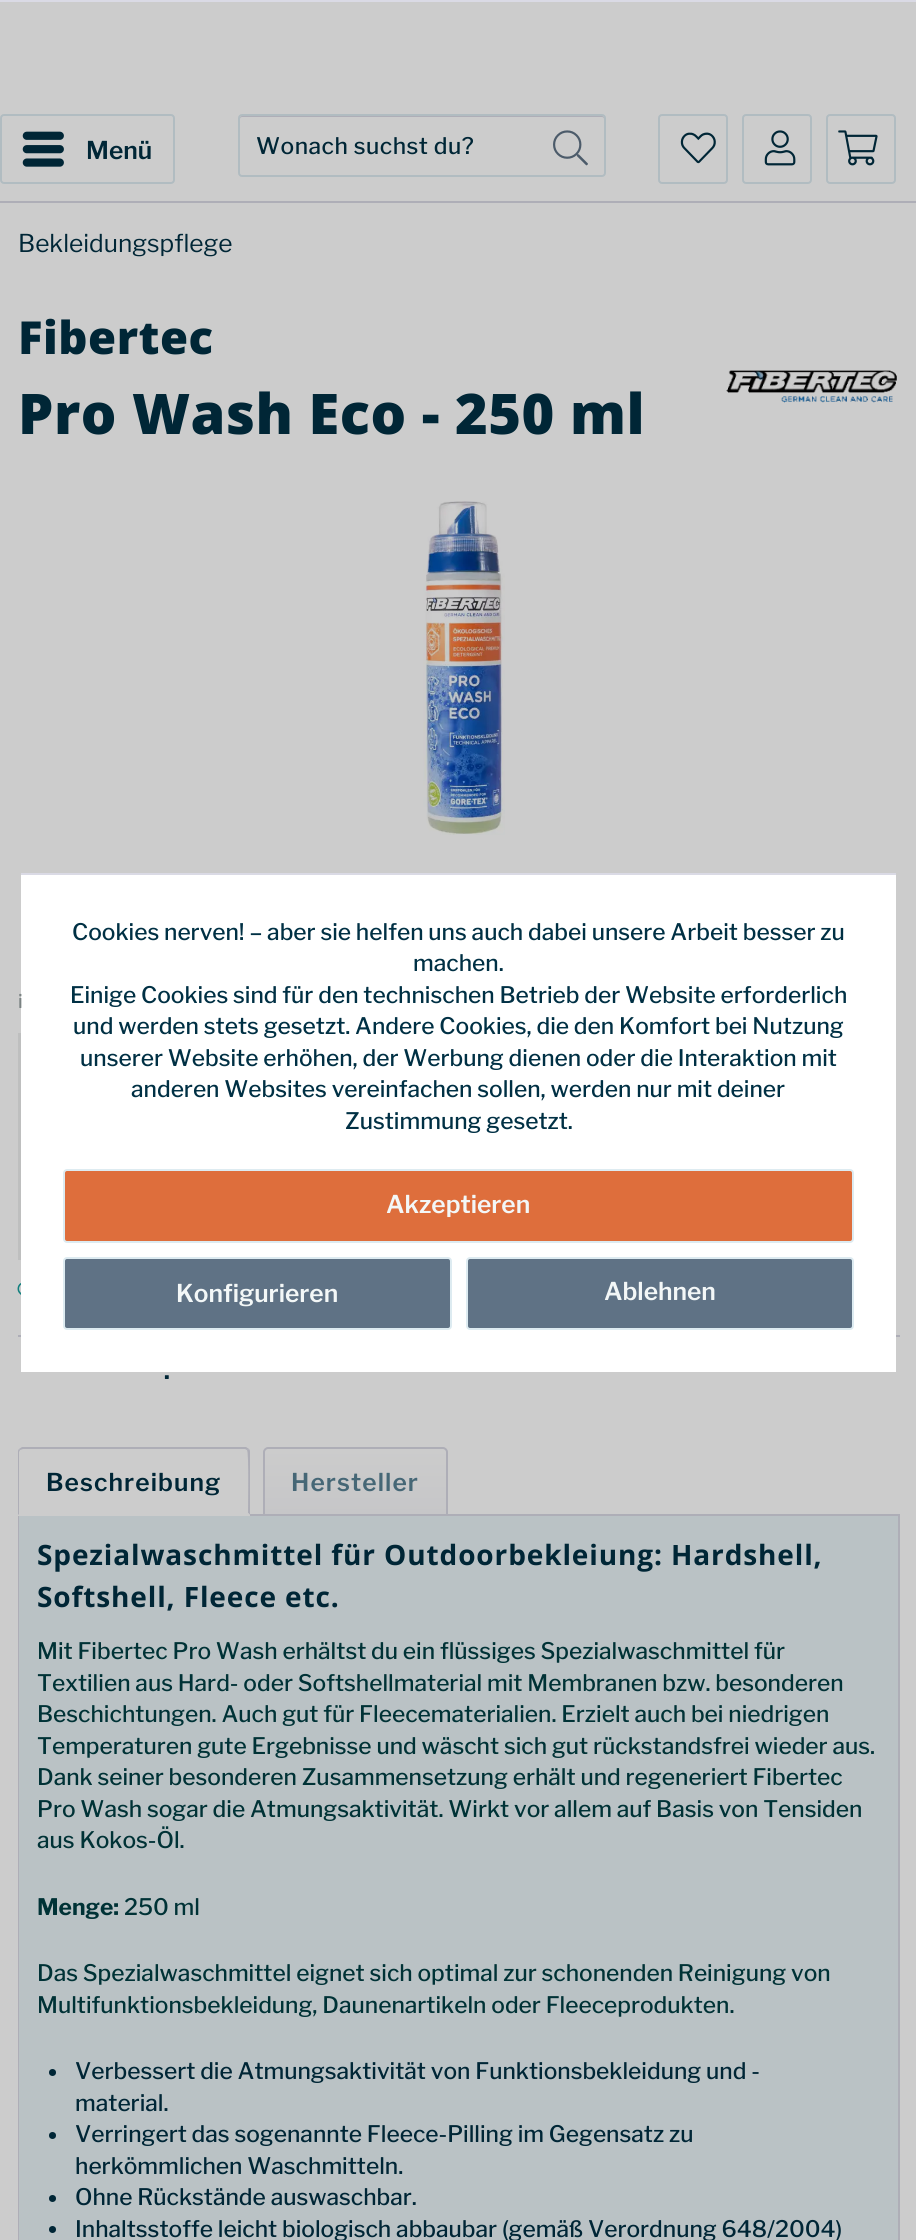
#include <cairo/cairo.h>
#include <math.h>
#include <stddef.h>


static void draw_spaced(cairo_t *cr, double x, double y, const char *s, double letter, double word) {
  cairo_move_to(cr, x, y);
  while (*s) {
    char ch[5] = {0};
    int n = 0;
    do ch[n++] = *s++; while ((*s & 0xC0) == 0x80);
    cairo_show_text(cr, ch);
    cairo_rel_move_to(cr, letter + word * (*ch == ' '), 0);
  }
}

static void rounded_rect(cairo_t *cr, double x, double y, double w, double h, double r) {
  cairo_new_sub_path(cr);
  cairo_arc(cr, x + w - r, y + h - r, r, 0, M_PI / 2);
  cairo_arc(cr, x + r, y + h - r, r, M_PI / 2, M_PI);
  cairo_arc(cr, x + r, y + r, r, M_PI, 1.5 * M_PI);
  cairo_arc(cr, x + w - r, y + r, r, 1.5 * M_PI, 2 * M_PI);
  cairo_close_path(cr);
}

static void draw_image(cairo_t *cr, const char *path, double x, double y, double w, double h) {
  cairo_surface_t *image = cairo_image_surface_create_from_png(path);
  cairo_save(cr);
  cairo_set_source_surface(cr, image, x, y);
  cairo_rectangle(cr, x, y, w, h);
  cairo_fill(cr);
  cairo_restore(cr);
  cairo_surface_destroy(image);
}

static void draw(cairo_t *cr) {
  cairo_pattern_t *gradient;
  cairo_set_source_rgb(cr, 204 / 255.0, 204 / 255.0, 204 / 255.0);
  cairo_paint(cr);
  cairo_set_source_rgb(cr, 174 / 255.0, 174 / 255.0, 183 / 255.0);
  cairo_rectangle(cr, 0, 201, 916, 2);
  cairo_fill(cr);
  rounded_rect(cr, 1, 115, 173, 68, 3);
  cairo_set_source_rgb(cr, 177 / 255.0, 188 / 255.0, 193 / 255.0);
  cairo_stroke(cr);
  draw_image(cr, "images/1.png", 22, 131, 42, 36);
  cairo_set_source_rgb(cr, 174 / 255.0, 174 / 255.0, 183 / 255.0);
  cairo_new_path(cr);
  cairo_move_to(cr, 242, 117);
  cairo_line_to(cr, 602, 117);
  cairo_curve_to(cr, 603, 117, 604, 118, 604, 119);
  cairo_curve_to(cr, 604, 118, 604, 116, 602, 116);
  cairo_line_to(cr, 242, 116);
  cairo_curve_to(cr, 240, 116, 240, 118, 240, 119);
  cairo_curve_to(cr, 240, 118, 241, 117, 242, 117);
  cairo_close_path(cr);
  cairo_fill(cr);
  rounded_rect(cr, 239, 115, 366, 61, 3);
  cairo_set_source_rgb(cr, 177 / 255.0, 188 / 255.0, 193 / 255.0);
  cairo_stroke(cr);
  draw_image(cr, "images/2.png", 553, 130, 35, 36);
  rounded_rect(cr, 659, 115, 68, 68, 3);
  cairo_stroke(cr);
  draw_image(cr, "images/3.png", 680, 132, 36, 32);
  rounded_rect(cr, 743, 115, 68, 68, 3);
  cairo_stroke(cr);
  draw_image(cr, "images/4.png", 764, 130, 32, 36);
  rounded_rect(cr, 827, 115, 68, 68, 3);
  cairo_stroke(cr);
  draw_image(cr, "images/5.png", 838, 130, 40, 36);
  draw_image(cr, "images/6.png", 726, 370, 171, 33);
  draw_image(cr, "images/7.png", 423, 501, 82, 334);
  cairo_set_source_rgb(cr, 190 / 255.0, 191 / 255.0, 191 / 255.0);
  cairo_rectangle(cr, 18, 1033, 3, 227);
  cairo_fill(cr);
  cairo_set_source_rgb(cr, 174 / 255.0, 174 / 255.0, 183 / 255.0);
  cairo_rectangle(cr, 18, 1335, 882, 2);
  cairo_fill(cr);
  draw_image(cr, "images/8.png", 17, 1283, 4, 12);
  cairo_rectangle(cr, 19, 1515, 880, 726);
  cairo_stroke(cr);
  cairo_set_source_rgb(cr, 204 / 255.0, 204 / 255.0, 204 / 255.0);
  cairo_new_path(cr);
  cairo_move_to(cr, 23, 1447);
  cairo_line_to(cr, 245, 1447);
  cairo_curve_to(cr, 248, 1447, 250, 1449, 250, 1452);
  cairo_line_to(cr, 250, 1516);
  cairo_line_to(cr, 18, 1516);
  cairo_line_to(cr, 18, 1452);
  cairo_curve_to(cr, 18, 1449, 20, 1447, 23, 1447);
  cairo_close_path(cr);
  cairo_fill(cr);
  cairo_set_source_rgb(cr, 174 / 255.0, 174 / 255.0, 183 / 255.0);
  cairo_new_path(cr);
  cairo_move_to(cr, 23, 1449);
  cairo_line_to(cr, 20, 1450);
  cairo_line_to(cr, 19, 1449);
  cairo_line_to(cr, 22, 1447);
  cairo_line_to(cr, 246, 1447);
  cairo_line_to(cr, 249, 1449);
  cairo_line_to(cr, 247, 1450);
  cairo_line_to(cr, 245, 1449);
  cairo_close_path(cr);
  cairo_fill(cr);
  cairo_new_path(cr);
  cairo_move_to(cr, 249, 1449);
  cairo_curve_to(cr, 250, 1450, 250, 1451, 250, 1452);
  cairo_line_to(cr, 250, 1515);
  cairo_line_to(cr, 248, 1513);
  cairo_curve_to(cr, 248, 1506, 249, 1453, 247, 1450);
  cairo_close_path(cr);
  cairo_fill(cr);
  cairo_set_source_rgb(cr, 204 / 255.0, 204 / 255.0, 204 / 255.0);
  cairo_new_path(cr);
  cairo_move_to(cr, 18, 1516);
  cairo_line_to(cr, 19, 1514);
  cairo_line_to(cr, 248, 1514);
  cairo_line_to(cr, 248, 1513);
  cairo_line_to(cr, 250, 1515);
  cairo_close_path(cr);
  cairo_fill(cr);
  cairo_set_source_rgb(cr, 174 / 255.0, 174 / 255.0, 183 / 255.0);
  cairo_new_path(cr);
  cairo_move_to(cr, 18, 1515);
  cairo_line_to(cr, 18, 1452);
  cairo_curve_to(cr, 18, 1451, 18, 1450, 19, 1449);
  cairo_line_to(cr, 20, 1450);
  cairo_line_to(cr, 19, 1452);
  cairo_line_to(cr, 19, 1514);
  cairo_close_path(cr);
  cairo_fill(cr);
  gradient = cairo_pattern_create_linear(355, 1449, 355, 1514);
  cairo_pattern_add_color_stop_rgba(gradient, 0, 204 / 255.0, 204 / 255.0, 204 / 255.0, 1);
  cairo_pattern_add_color_stop_rgba(gradient, 1, 198 / 255.0, 198 / 255.0, 200 / 255.0, 1);
  cairo_set_source(cr, gradient);
  cairo_pattern_destroy(gradient);
  cairo_new_path(cr);
  cairo_move_to(cr, 268, 1449);
  cairo_line_to(cr, 442, 1449);
  cairo_curve_to(cr, 444, 1449, 446, 1451, 446, 1453);
  cairo_line_to(cr, 446, 1514);
  cairo_line_to(cr, 264, 1514);
  cairo_line_to(cr, 264, 1453);
  cairo_curve_to(cr, 264, 1451, 266, 1449, 268, 1449);
  cairo_close_path(cr);
  cairo_fill(cr);
  cairo_new_path(cr);
  cairo_move_to(cr, 268, 1448);
  cairo_line_to(cr, 443, 1448);
  cairo_curve_to(cr, 445, 1448, 447, 1450, 447, 1452);
  cairo_line_to(cr, 447, 1515);
  cairo_line_to(cr, 264, 1515);
  cairo_line_to(cr, 264, 1452);
  cairo_curve_to(cr, 264, 1450, 266, 1448, 268, 1448);
  cairo_close_path(cr);
  cairo_set_source_rgb(cr, 174 / 255.0, 174 / 255.0, 183 / 255.0);
  cairo_stroke(cr);
  cairo_set_source_rgb(cr, 186 / 255.0, 194 / 255.0, 197 / 255.0);
  cairo_rectangle(cr, 19, 1516, 879, 724);
  cairo_fill(cr);
  cairo_set_source_rgb(cr, 0, 38 / 255.0, 54 / 255.0);
  cairo_arc(cr, 52.5, 2072.5, 3.5, 0, 2 * M_PI);
  cairo_fill(cr);
  cairo_arc(cr, 52.5, 2135.5, 3.5, 0, 2 * M_PI);
  cairo_fill(cr);
  cairo_arc(cr, 52.5, 2198.5, 3.5, 0, 2 * M_PI);
  cairo_fill(cr);
  cairo_arc(cr, 52.5, 2229.5, 3.5, 0, 2 * M_PI);
  cairo_fill(cr);
  cairo_set_source_rgb(cr, 218 / 255.0, 218 / 255.0, 229 / 255.0);
  cairo_rectangle(cr, 0, 0, 916, 2);
  cairo_fill(cr);
  cairo_set_source_rgb(cr, 1, 1, 1);
  cairo_rectangle(cr, 21, 875, 875, 497);
  cairo_fill(cr);
  cairo_set_source_rgb(cr, 218 / 255.0, 218 / 255.0, 229 / 255.0);
  cairo_rectangle(cr, 21, 873, 875, 2);
  cairo_fill(cr);
  cairo_set_source_rgb(cr, 222 / 255.0, 110 / 255.0, 60 / 255.0);
  rounded_rect(cr, 64, 1170, 789, 72, 3);
  cairo_fill_preserve(cr);
  cairo_set_source_rgb(cr, 221 / 255.0, 235 / 255.0, 241 / 255.0);
  cairo_stroke(cr);
  cairo_set_source_rgb(cr, 95 / 255.0, 114 / 255.0, 133 / 255.0);
  rounded_rect(cr, 64, 1258, 387, 71, 3);
  cairo_fill_preserve(cr);
  cairo_set_source_rgb(cr, 221 / 255.0, 235 / 255.0, 241 / 255.0);
  cairo_stroke(cr);
  cairo_set_source_rgb(cr, 95 / 255.0, 114 / 255.0, 133 / 255.0);
  rounded_rect(cr, 467, 1258, 386, 71, 3);
  cairo_fill_preserve(cr);
  cairo_set_source_rgb(cr, 221 / 255.0, 235 / 255.0, 241 / 255.0);
  cairo_stroke(cr);
  cairo_select_font_face(cr, "Libre Franklin SemiBold", CAIRO_FONT_SLANT_NORMAL, CAIRO_FONT_WEIGHT_NORMAL);
  cairo_set_font_size(cr, 24.5);
  cairo_set_source_rgb(cr, 0, 38 / 255.0, 54 / 255.0);
  cairo_move_to(cr, 86, 159);
  cairo_show_text(cr, "Menü");
  cairo_select_font_face(cr, "Libre Franklin Medium", CAIRO_FONT_SLANT_NORMAL, CAIRO_FONT_WEIGHT_NORMAL);
  cairo_set_font_size(cr, 22.75);
  draw_spaced(cr, 256, 154, "Wonach suchst du?", 0.5, 0);
  cairo_select_font_face(cr, "Libre Franklin", CAIRO_FONT_SLANT_NORMAL, CAIRO_FONT_WEIGHT_NORMAL);
  cairo_set_font_size(cr, 24.5);
  cairo_move_to(cr, 18, 252);
  cairo_show_text(cr, "Bekleidungspflege");
  cairo_select_font_face(cr, "Open Sans ExtraBold", CAIRO_FONT_SLANT_NORMAL, CAIRO_FONT_WEIGHT_NORMAL);
  cairo_set_font_size(cr, 45.5);
  draw_spaced(cr, 18, 354, "Fibertec", 0.5, 0);
  cairo_set_font_size(cr, 56);
  draw_spaced(cr, 18, 434, "Pro Wash Eco - 250 ml", 0.5, 0);
  cairo_select_font_face(cr, "Libre Franklin Medium", CAIRO_FONT_SLANT_NORMAL, CAIRO_FONT_WEIGHT_NORMAL);
  cairo_set_font_size(cr, 19);
  cairo_set_source_rgb(cr, 122 / 255.0, 130 / 255.0, 130 / 255.0);
  cairo_move_to(cr, 18, 1008);
  cairo_show_text(cr, "i");
  cairo_select_font_face(cr, "Libre Franklin", CAIRO_FONT_SLANT_NORMAL, CAIRO_FONT_WEIGHT_BOLD);
  cairo_set_font_size(cr, 22.75);
  cairo_set_source_rgb(cr, 0, 38 / 255.0, 54 / 255.0);
  cairo_move_to(cr, 164, 1379);
  cairo_show_text(cr, ".");
  cairo_select_font_face(cr, "Libre Franklin SemiBold", CAIRO_FONT_SLANT_NORMAL, CAIRO_FONT_WEIGHT_NORMAL);
  cairo_set_font_size(cr, 24.5);
  draw_spaced(cr, 46, 1491, "Beschreibung", 1.1, 0);
  cairo_set_source_rgb(cr, 70 / 255.0, 103 / 255.0, 118 / 255.0);
  draw_spaced(cr, 291, 1491, "Hersteller", 1.1, 0);
  cairo_select_font_face(cr, "Open Sans", CAIRO_FONT_SLANT_NORMAL, CAIRO_FONT_WEIGHT_BOLD);
  cairo_set_font_size(cr, 28);
  cairo_set_source_rgb(cr, 0, 38 / 255.0, 54 / 255.0);
  draw_spaced(cr, 37, 1565, "Spezialwaschmittel für Outdoorbekleiung: Hardshell,", 0.88, 0);
  draw_spaced(cr, 37, 1607, "Softshell, Fleece etc.", 0.88, 0);
  cairo_select_font_face(cr, "Libre Franklin Medium", CAIRO_FONT_SLANT_NORMAL, CAIRO_FONT_WEIGHT_NORMAL);
  cairo_set_font_size(cr, 22.75);
  cairo_set_source_rgb(cr, 0, 50 / 255.0, 54 / 255.0);
  cairo_move_to(cr, 37, 1659);
  cairo_show_text(cr, "Mit Fibertec Pro Wash erhältst du ein flüssiges Spezialwaschmittel für");
  cairo_move_to(cr, 37, 1691);
  cairo_show_text(cr, "Textilien aus Hard- oder Softshellmaterial mit Membranen bzw. besonderen");
  cairo_move_to(cr, 37, 1722);
  cairo_show_text(cr, "Beschichtungen. Auch gut für Fleecematerialien. Erzielt auch bei niedrigen");
  cairo_move_to(cr, 37, 1754);
  cairo_show_text(cr, "Temperaturen gute Ergebnisse und wäscht sich gut rückstandsfrei wieder aus.");
  cairo_move_to(cr, 37, 1785);
  cairo_show_text(cr, "Dank seiner besonderen Zusammensetzung erhält und regeneriert Fibertec");
  cairo_move_to(cr, 37, 1817);
  cairo_show_text(cr, "Pro Wash sogar die Atmungsaktivität. Wirkt vor allem auf Basis von Tensiden");
  cairo_move_to(cr, 37, 1848);
  cairo_show_text(cr, "aus Kokos-Öl.");
  cairo_select_font_face(cr, "Libre Franklin", CAIRO_FONT_SLANT_NORMAL, CAIRO_FONT_WEIGHT_BOLD);
  cairo_move_to(cr, 37, 1915);
  cairo_show_text(cr, "Menge:");
  cairo_select_font_face(cr, "Libre Franklin Medium", CAIRO_FONT_SLANT_NORMAL, CAIRO_FONT_WEIGHT_NORMAL);
  cairo_move_to(cr, 124, 1915);
  cairo_show_text(cr, "250 ml");
  cairo_move_to(cr, 37, 1981);
  cairo_show_text(cr, "Das Spezialwaschmittel eignet sich optimal zur schonenden Reinigung von");
  cairo_move_to(cr, 37, 2013);
  cairo_show_text(cr, "Multifunktionsbekleidung, Daunenartikeln oder Fleeceprodukten.");
  cairo_set_source_rgb(cr, 0, 38 / 255.0, 54 / 255.0);
  cairo_move_to(cr, 75, 2079);
  cairo_show_text(cr, "Verbessert die Atmungsaktivität von Funktionsbekleidung und -");
  cairo_move_to(cr, 75, 2111);
  cairo_show_text(cr, "material.");
  cairo_move_to(cr, 75, 2142);
  cairo_show_text(cr, "Verringert das sogenannte Fleece-Pilling im Gegensatz zu");
  cairo_move_to(cr, 75, 2174);
  cairo_show_text(cr, "herkömmlichen Waschmitteln.");
  cairo_move_to(cr, 75, 2205);
  cairo_show_text(cr, "Ohne Rückstände auswaschbar.");
  cairo_move_to(cr, 75, 2237);
  cairo_show_text(cr, "Inhaltsstoffe leicht biologisch abbaubar (gemäß Verordnung 648/2004)");
  cairo_set_source_rgb(cr, 0, 48 / 255.0, 68 / 255.0);
  cairo_move_to(cr, 72, 940);
  cairo_show_text(cr, "Cookies nerven! – aber sie helfen uns auch dabei unsere Arbeit besser zu");
  cairo_move_to(cr, 413, 971);
  cairo_show_text(cr, "machen.");
  cairo_move_to(cr, 70, 1003);
  cairo_show_text(cr, "Einige Cookies sind für den technischen Betrieb der Website erforderlich");
  cairo_move_to(cr, 73, 1034);
  cairo_show_text(cr, "und werden stets gesetzt. Andere Cookies, die den Komfort bei Nutzung");
  cairo_move_to(cr, 80, 1066);
  cairo_show_text(cr, "unserer Website erhöhen, der Werbung dienen oder die Interaktion mit");
  cairo_move_to(cr, 131, 1097);
  cairo_show_text(cr, "anderen Websites vereinfachen sollen, werden nur mit deiner");
  cairo_move_to(cr, 345, 1129);
  cairo_show_text(cr, "Zustimmung gesetzt.");
  cairo_select_font_face(cr, "Libre Franklin SemiBold", CAIRO_FONT_SLANT_NORMAL, CAIRO_FONT_WEIGHT_NORMAL);
  cairo_set_font_size(cr, 24.5);
  cairo_set_source_rgb(cr, 243 / 255.0, 247 / 255.0, 247 / 255.0);
  cairo_move_to(cr, 386, 1213);
  cairo_show_text(cr, "Akzeptieren");
  cairo_move_to(cr, 176, 1302);
  cairo_show_text(cr, "Konfigurieren");
  cairo_move_to(cr, 604, 1300);
  cairo_show_text(cr, "Ablehnen");
}

int main(void) {
  cairo_surface_t *surface = cairo_image_surface_create(CAIRO_FORMAT_RGB24, 916, 2240);
  cairo_t *cr = cairo_create(surface);
  cairo_font_options_t *options = cairo_font_options_create();
  cairo_font_options_set_hint_metrics(options, CAIRO_HINT_METRICS_OFF);
  cairo_font_options_set_hint_style(options, CAIRO_HINT_STYLE_NONE);
  cairo_set_font_options(cr, options);
  cairo_set_miter_limit(cr, 4);
  draw(cr);
  cairo_surface_write_to_png(surface, "out.png");
  cairo_font_options_destroy(options);
  cairo_destroy(cr);
  cairo_surface_destroy(surface);
  return 0;
}
